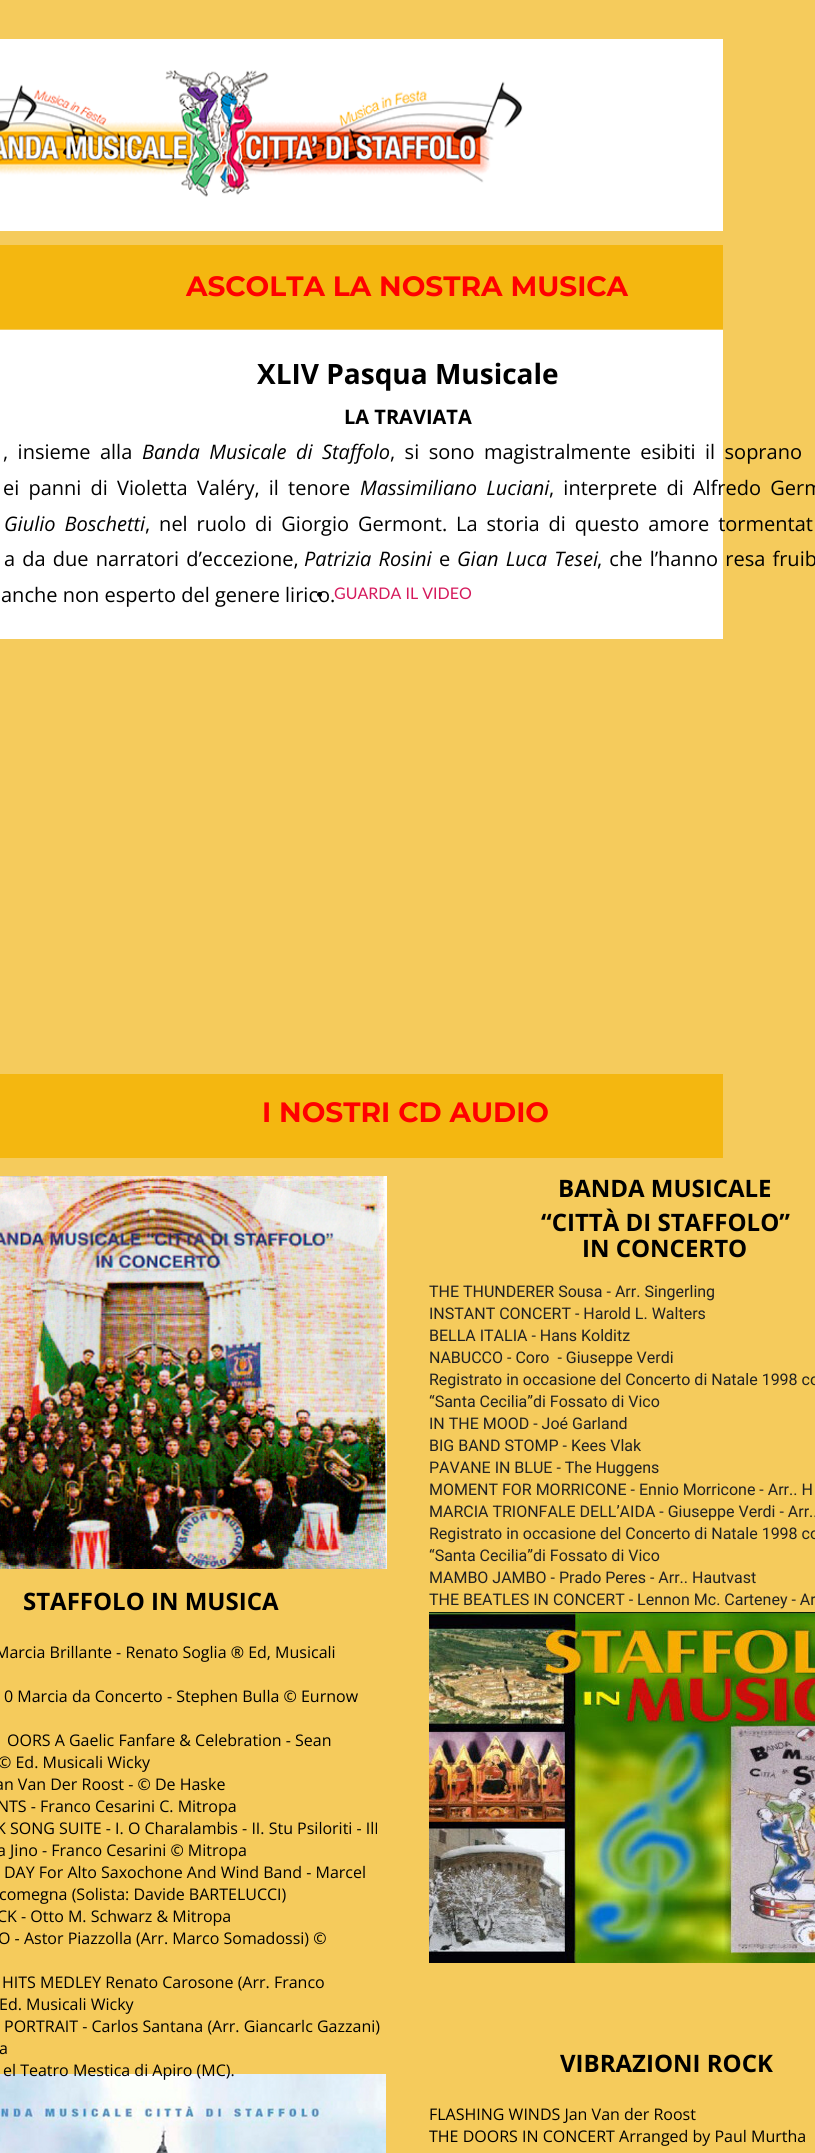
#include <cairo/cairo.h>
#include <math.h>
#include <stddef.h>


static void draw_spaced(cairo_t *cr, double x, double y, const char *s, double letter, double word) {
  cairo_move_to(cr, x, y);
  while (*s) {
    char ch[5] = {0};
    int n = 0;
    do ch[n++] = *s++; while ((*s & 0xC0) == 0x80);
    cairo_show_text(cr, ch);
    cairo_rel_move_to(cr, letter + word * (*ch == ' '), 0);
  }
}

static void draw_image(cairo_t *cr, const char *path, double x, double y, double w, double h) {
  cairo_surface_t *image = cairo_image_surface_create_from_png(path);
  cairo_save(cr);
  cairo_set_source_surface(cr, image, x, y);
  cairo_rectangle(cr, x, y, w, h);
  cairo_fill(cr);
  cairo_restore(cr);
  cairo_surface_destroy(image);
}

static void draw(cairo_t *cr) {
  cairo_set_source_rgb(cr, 245 / 255.0, 203 / 255.0, 92 / 255.0);
  cairo_paint(cr);
  cairo_set_source_rgb(cr, 1, 1, 1);
  cairo_rectangle(cr, 0, 39, 723, 192);
  cairo_fill(cr);
  draw_image(cr, "images/1.png", 0, 70, 523, 127);
  cairo_set_source_rgb(cr, 244 / 255.0, 183 / 255.0, 16 / 255.0);
  cairo_rectangle(cr, 0, 245, 723, 84);
  cairo_fill(cr);
  cairo_set_source_rgb(cr, 1, 1, 1);
  cairo_rectangle(cr, 0, 330, 723, 309);
  cairo_fill(cr);
  cairo_set_source_rgb(cr, 0, 0, 0);
  cairo_arc(cr, 319.5, 594.5, 2.5, 0, 2 * M_PI);
  cairo_fill(cr);
  cairo_set_source_rgb(cr, 244 / 255.0, 183 / 255.0, 16 / 255.0);
  cairo_rectangle(cr, 0, 1074, 723, 84);
  cairo_fill(cr);
  draw_image(cr, "images/2.png", 0, 1176, 387, 393);
  draw_image(cr, "images/3.png", 429, 1612, 386, 351);
  draw_image(cr, "images/4.png", 0, 2074, 386, 79);
  cairo_select_font_face(cr, "Montserrat", CAIRO_FONT_SLANT_NORMAL, CAIRO_FONT_WEIGHT_BOLD);
  cairo_set_font_size(cr, 28);
  cairo_set_source_rgb(cr, 1, 0, 0);
  cairo_move_to(cr, 186, 296);
  cairo_show_text(cr, "ASCOLTA LA NOSTRA MUSICA");
  cairo_select_font_face(cr, "Open Sans", CAIRO_FONT_SLANT_NORMAL, CAIRO_FONT_WEIGHT_BOLD);
  cairo_set_source_rgb(cr, 0, 0, 0);
  cairo_move_to(cr, 257, 384);
  cairo_show_text(cr, "XLIV Pasqua Musicale");
  cairo_set_font_size(cr, 20);
  cairo_move_to(cr, 344, 424);
  cairo_show_text(cr, "LA TRAVIATA");
  cairo_select_font_face(cr, "Open Sans", CAIRO_FONT_SLANT_NORMAL, CAIRO_FONT_WEIGHT_NORMAL);
  draw_spaced(cr, 3, 459, ", insieme alla", 0, 4.25);
  cairo_select_font_face(cr, "Open Sans", CAIRO_FONT_SLANT_ITALIC, CAIRO_FONT_WEIGHT_NORMAL);
  draw_spaced(cr, 142, 459, "Banda Musicale di Staffolo", 0, 4.25);
  cairo_select_font_face(cr, "Open Sans", CAIRO_FONT_SLANT_NORMAL, CAIRO_FONT_WEIGHT_NORMAL);
  draw_spaced(cr, 390, 459, ", si sono magistralmente esibiti il soprano", 0, 4.25);
  draw_spaced(cr, 3, 495, "ei panni di Violetta Valéry, il tenore", 0, 4);
  cairo_select_font_face(cr, "Open Sans", CAIRO_FONT_SLANT_ITALIC, CAIRO_FONT_WEIGHT_NORMAL);
  draw_spaced(cr, 360, 495, "Massimiliano Luciani", 0, 4);
  cairo_select_font_face(cr, "Open Sans", CAIRO_FONT_SLANT_NORMAL, CAIRO_FONT_WEIGHT_NORMAL);
  draw_spaced(cr, 549, 495, ", interprete di Alfredo Germ", 0, 4);
  cairo_select_font_face(cr, "Open Sans", CAIRO_FONT_SLANT_ITALIC, CAIRO_FONT_WEIGHT_NORMAL);
  draw_spaced(cr, 4, 531, "Giulio Boschetti", 0, 3.75);
  cairo_select_font_face(cr, "Open Sans", CAIRO_FONT_SLANT_NORMAL, CAIRO_FONT_WEIGHT_NORMAL);
  draw_spaced(cr, 145, 531, ", nel ruolo di Giorgio Germont. La storia di questo amore tormentat", 0, 3.75);
  draw_spaced(cr, 4, 566, "a da due narratori d’eccezione,", 0, 2);
  cairo_select_font_face(cr, "Open Sans", CAIRO_FONT_SLANT_ITALIC, CAIRO_FONT_WEIGHT_NORMAL);
  draw_spaced(cr, 304, 566, "Patrizia Rosini", 0, 2);
  cairo_select_font_face(cr, "Open Sans", CAIRO_FONT_SLANT_NORMAL, CAIRO_FONT_WEIGHT_NORMAL);
  cairo_move_to(cr, 439, 566);
  cairo_show_text(cr, "e");
  cairo_select_font_face(cr, "Open Sans", CAIRO_FONT_SLANT_ITALIC, CAIRO_FONT_WEIGHT_NORMAL);
  draw_spaced(cr, 457, 566, "Gian Luca Tesei", 0, 2);
  cairo_select_font_face(cr, "Open Sans", CAIRO_FONT_SLANT_NORMAL, CAIRO_FONT_WEIGHT_NORMAL);
  draw_spaced(cr, 597, 566, ", che l’hanno resa fruib", 0, 2);
  cairo_select_font_face(cr, "Lato", CAIRO_FONT_SLANT_NORMAL, CAIRO_FONT_WEIGHT_NORMAL);
  cairo_set_font_size(cr, 16);
  cairo_set_source_rgb(cr, 213 / 255.0, 25 / 255.0, 92 / 255.0);
  cairo_move_to(cr, 334, 599);
  cairo_show_text(cr, "GUARDA IL VIDEO");
  cairo_select_font_face(cr, "Open Sans", CAIRO_FONT_SLANT_NORMAL, CAIRO_FONT_WEIGHT_NORMAL);
  cairo_set_font_size(cr, 20);
  cairo_set_source_rgb(cr, 0, 0, 0);
  cairo_move_to(cr, 1, 602);
  cairo_show_text(cr, "anche non esperto del genere lirico.");
  cairo_select_font_face(cr, "Montserrat", CAIRO_FONT_SLANT_NORMAL, CAIRO_FONT_WEIGHT_BOLD);
  cairo_set_font_size(cr, 28);
  cairo_set_source_rgb(cr, 1, 0, 0);
  cairo_move_to(cr, 262, 1122);
  cairo_show_text(cr, "I NOSTRI CD AUDIO");
  cairo_select_font_face(cr, "Open Sans", CAIRO_FONT_SLANT_NORMAL, CAIRO_FONT_WEIGHT_BOLD);
  cairo_set_font_size(cr, 24);
  cairo_set_source_rgb(cr, 0, 0, 0);
  cairo_move_to(cr, 558, 1197);
  cairo_show_text(cr, "BANDA MUSICALE");
  cairo_move_to(cr, 541, 1231);
  cairo_show_text(cr, "“CITTÀ DI STAFFOLO”");
  cairo_move_to(cr, 582, 1257);
  cairo_show_text(cr, "IN CONCERTO");
  cairo_move_to(cr, 23, 1610);
  cairo_show_text(cr, "STAFFOLO IN MUSICA");
  cairo_select_font_face(cr, "Roboto", CAIRO_FONT_SLANT_NORMAL, CAIRO_FONT_WEIGHT_NORMAL);
  cairo_set_font_size(cr, 16);
  cairo_set_source_rgb(cr, 33 / 255.0, 33 / 255.0, 33 / 255.0);
  cairo_move_to(cr, 429, 1297);
  cairo_show_text(cr, "THE THUNDERER Sousa - Arr. Singerling");
  cairo_move_to(cr, 429, 1319);
  cairo_show_text(cr, "INSTANT CONCERT - Harold L. Walters");
  cairo_move_to(cr, 429, 1341);
  cairo_show_text(cr, "BELLA ITALIA - Hans Kolditz");
  cairo_move_to(cr, 429, 1363);
  cairo_show_text(cr, "NABUCCO - Coro  - Giuseppe Verdi");
  cairo_move_to(cr, 429, 1385);
  cairo_show_text(cr, "Registrato in occasione del Concerto di Natale 1998 co");
  cairo_move_to(cr, 429, 1407);
  cairo_show_text(cr, "“Santa Cecilia”di Fossato di Vico");
  cairo_move_to(cr, 429, 1429);
  cairo_show_text(cr, "IN THE MOOD - Joé Garland");
  cairo_move_to(cr, 429, 1451);
  cairo_show_text(cr, "BIG BAND STOMP - Kees Vlak");
  cairo_move_to(cr, 429, 1473);
  cairo_show_text(cr, "PAVANE IN BLUE - The Huggens");
  cairo_move_to(cr, 429, 1495);
  cairo_show_text(cr, "MOMENT FOR MORRICONE - Ennio Morricone - Arr.. H");
  cairo_move_to(cr, 429, 1517);
  cairo_show_text(cr, "MARCIA TRIONFALE DELL’AIDA - Giuseppe Verdi - Arr..");
  cairo_move_to(cr, 429, 1539);
  cairo_show_text(cr, "Registrato in occasione del Concerto di Natale 1998 co");
  cairo_move_to(cr, 429, 1561);
  cairo_show_text(cr, "“Santa Cecilia”di Fossato di Vico");
  cairo_move_to(cr, 429, 1583);
  cairo_show_text(cr, "MAMBO JAMBO - Prado Peres - Arr.. Hautvast");
  cairo_move_to(cr, 429, 1605);
  cairo_show_text(cr, "THE BEATLES IN CONCERT - Lennon Mc. Carteney - Ar");
  cairo_select_font_face(cr, "Open Sans", CAIRO_FONT_SLANT_NORMAL, CAIRO_FONT_WEIGHT_NORMAL);
  cairo_set_source_rgb(cr, 0, 0, 0);
  cairo_move_to(cr, -5, 1658);
  cairo_show_text(cr, "Marcia Brillante - Renato Soglia ® Ed, Musicali");
  cairo_move_to(cr, 4, 1702);
  cairo_show_text(cr, "0 Marcia da Concerto - Stephen Bulla © Eurnow");
  cairo_move_to(cr, 7, 1746);
  cairo_show_text(cr, "OORS A Gaelic Fanfare & Celebration - Sean");
  cairo_move_to(cr, -2, 1768);
  cairo_show_text(cr, "© Ed. Musicali Wicky");
  cairo_move_to(cr, -5, 1790);
  cairo_show_text(cr, "an Van Der Roost - © De Haske");
  cairo_move_to(cr, -3, 1812);
  cairo_show_text(cr, "NTS - Franco Cesarini C. Mitropa");
  cairo_move_to(cr, -4, 1834);
  cairo_show_text(cr, "K SONG SUITE - I. O Charalambis - II. Stu Psiloriti - IlI");
  cairo_move_to(cr, -3, 1856);
  cairo_show_text(cr, "a Jino - Franco Cesarini © Mitropa");
  cairo_move_to(cr, 4, 1878);
  cairo_show_text(cr, "DAY For Alto Saxochone And Wind Band - Marcel");
  cairo_move_to(cr, -1, 1900);
  cairo_show_text(cr, "comegna (Solista: Davide BARTELUCCI)");
  cairo_move_to(cr, -3, 1922);
  cairo_show_text(cr, "CK - Otto M. Schwarz & Mitropa");
  cairo_move_to(cr, -2, 1944);
  cairo_show_text(cr, "O - Astor Piazzolla (Arr. Marco Somadossi) ©");
  cairo_move_to(cr, 2, 1988);
  cairo_show_text(cr, "HITS MEDLEY Renato Carosone (Arr. Franco");
  cairo_move_to(cr, -1, 2010);
  cairo_show_text(cr, "Ed. Musicali Wicky");
  cairo_move_to(cr, 4, 2032);
  cairo_show_text(cr, "PORTRAIT - Carlos Santana (Arr. Giancarlc Gazzani)");
  cairo_move_to(cr, -1, 2054);
  cairo_show_text(cr, "a");
  cairo_move_to(cr, 3, 2076);
  cairo_show_text(cr, "el Teatro Mestica di Apiro (MC).");
  cairo_select_font_face(cr, "Open Sans", CAIRO_FONT_SLANT_NORMAL, CAIRO_FONT_WEIGHT_BOLD);
  cairo_set_font_size(cr, 24);
  cairo_move_to(cr, 560, 2072);
  cairo_show_text(cr, "VIBRAZIONI ROCK");
  cairo_select_font_face(cr, "Open Sans", CAIRO_FONT_SLANT_NORMAL, CAIRO_FONT_WEIGHT_NORMAL);
  cairo_set_font_size(cr, 16);
  cairo_move_to(cr, 429, 2120);
  cairo_show_text(cr, "FLASHING WINDS Jan Van der Roost");
  cairo_move_to(cr, 429, 2142);
  cairo_show_text(cr, "THE DOORS IN CONCERT Arranged by Paul Murtha");
}

int main(void) {
  cairo_surface_t *surface = cairo_image_surface_create(CAIRO_FORMAT_RGB24, 815, 2153);
  cairo_t *cr = cairo_create(surface);
  cairo_font_options_t *options = cairo_font_options_create();
  cairo_font_options_set_hint_metrics(options, CAIRO_HINT_METRICS_OFF);
  cairo_font_options_set_hint_style(options, CAIRO_HINT_STYLE_NONE);
  cairo_set_font_options(cr, options);
  cairo_set_miter_limit(cr, 4);
  draw(cr);
  cairo_surface_write_to_png(surface, "out.png");
  cairo_font_options_destroy(options);
  cairo_destroy(cr);
  cairo_surface_destroy(surface);
  return 0;
}
